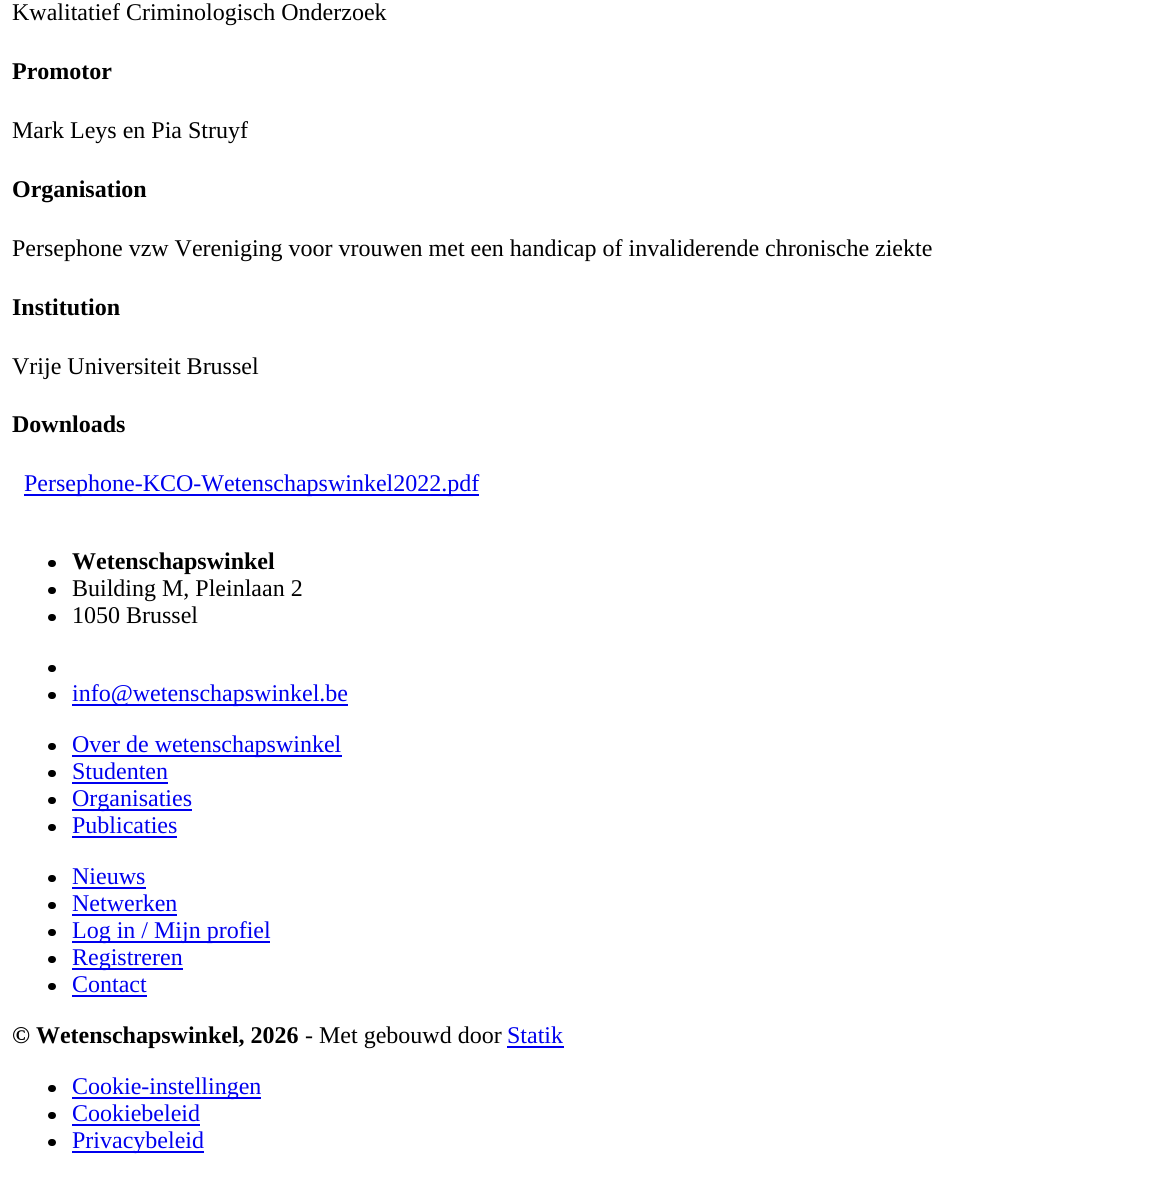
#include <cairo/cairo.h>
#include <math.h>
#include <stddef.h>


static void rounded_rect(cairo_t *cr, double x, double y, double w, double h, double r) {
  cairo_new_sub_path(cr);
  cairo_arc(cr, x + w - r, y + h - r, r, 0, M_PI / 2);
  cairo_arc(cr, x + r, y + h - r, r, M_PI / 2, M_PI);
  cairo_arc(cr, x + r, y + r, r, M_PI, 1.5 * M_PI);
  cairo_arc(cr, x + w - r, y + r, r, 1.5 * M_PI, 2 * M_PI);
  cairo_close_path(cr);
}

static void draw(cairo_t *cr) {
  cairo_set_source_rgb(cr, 1, 1, 1);
  cairo_paint(cr);
  cairo_set_source_rgb(cr, 0, 0, 238 / 255.0);
  cairo_rectangle(cr, 24, 494, 455, 2);
  cairo_fill(cr);
  cairo_set_source_rgb(cr, 0, 0, 0);
  rounded_rect(cr, 48, 560, 8, 7, 3.5);
  cairo_fill(cr);
  rounded_rect(cr, 48, 587, 8, 7, 3.5);
  cairo_fill(cr);
  rounded_rect(cr, 48, 614, 8, 7, 3.5);
  cairo_fill(cr);
  rounded_rect(cr, 48, 665, 8, 7, 3.5);
  cairo_fill(cr);
  rounded_rect(cr, 48, 692, 8, 7, 3.5);
  cairo_fill(cr);
  cairo_set_source_rgb(cr, 0, 0, 238 / 255.0);
  cairo_rectangle(cr, 72, 704, 276, 2);
  cairo_fill(cr);
  cairo_set_source_rgb(cr, 0, 0, 0);
  rounded_rect(cr, 48, 743, 8, 7, 3.5);
  cairo_fill(cr);
  cairo_set_source_rgb(cr, 0, 0, 238 / 255.0);
  cairo_rectangle(cr, 72, 755, 270, 2);
  cairo_fill(cr);
  cairo_set_source_rgb(cr, 0, 0, 0);
  rounded_rect(cr, 48, 770, 8, 7, 3.5);
  cairo_fill(cr);
  cairo_set_source_rgb(cr, 0, 0, 238 / 255.0);
  cairo_rectangle(cr, 72, 782, 96, 2);
  cairo_fill(cr);
  cairo_set_source_rgb(cr, 0, 0, 0);
  rounded_rect(cr, 48, 797, 8, 7, 3.5);
  cairo_fill(cr);
  cairo_set_source_rgb(cr, 0, 0, 238 / 255.0);
  cairo_rectangle(cr, 72, 809, 120, 2);
  cairo_fill(cr);
  cairo_set_source_rgb(cr, 0, 0, 0);
  rounded_rect(cr, 48, 824, 8, 7, 3.5);
  cairo_fill(cr);
  cairo_set_source_rgb(cr, 0, 0, 238 / 255.0);
  cairo_rectangle(cr, 72, 836, 105, 2);
  cairo_fill(cr);
  cairo_set_source_rgb(cr, 0, 0, 0);
  rounded_rect(cr, 48, 875, 8, 7, 3.5);
  cairo_fill(cr);
  cairo_set_source_rgb(cr, 0, 0, 238 / 255.0);
  cairo_rectangle(cr, 72, 887, 74, 2);
  cairo_fill(cr);
  cairo_set_source_rgb(cr, 0, 0, 0);
  rounded_rect(cr, 48, 902, 8, 7, 3.5);
  cairo_fill(cr);
  cairo_set_source_rgb(cr, 0, 0, 238 / 255.0);
  cairo_rectangle(cr, 72, 914, 105, 2);
  cairo_fill(cr);
  cairo_set_source_rgb(cr, 0, 0, 0);
  rounded_rect(cr, 48, 929, 8, 7, 3.5);
  cairo_fill(cr);
  cairo_set_source_rgb(cr, 0, 0, 238 / 255.0);
  cairo_rectangle(cr, 72, 941, 198, 2);
  cairo_fill(cr);
  cairo_set_source_rgb(cr, 0, 0, 0);
  rounded_rect(cr, 48, 956, 8, 7, 3.5);
  cairo_fill(cr);
  cairo_set_source_rgb(cr, 0, 0, 238 / 255.0);
  cairo_rectangle(cr, 72, 968, 111, 2);
  cairo_fill(cr);
  cairo_set_source_rgb(cr, 0, 0, 0);
  rounded_rect(cr, 48, 983, 8, 7, 3.5);
  cairo_fill(cr);
  cairo_set_source_rgb(cr, 0, 0, 238 / 255.0);
  cairo_rectangle(cr, 72, 995, 75, 2);
  cairo_fill(cr);
  cairo_rectangle(cr, 507, 1046, 57, 2);
  cairo_fill(cr);
  cairo_set_source_rgb(cr, 0, 0, 0);
  rounded_rect(cr, 48, 1085, 8, 7, 3.5);
  cairo_fill(cr);
  cairo_set_source_rgb(cr, 0, 0, 238 / 255.0);
  cairo_rectangle(cr, 72, 1097, 189, 2);
  cairo_fill(cr);
  cairo_set_source_rgb(cr, 0, 0, 0);
  rounded_rect(cr, 48, 1112, 8, 7, 3.5);
  cairo_fill(cr);
  cairo_set_source_rgb(cr, 0, 0, 238 / 255.0);
  cairo_rectangle(cr, 72, 1124, 128, 2);
  cairo_fill(cr);
  cairo_set_source_rgb(cr, 0, 0, 0);
  rounded_rect(cr, 48, 1139, 8, 7, 3.5);
  cairo_fill(cr);
  cairo_set_source_rgb(cr, 0, 0, 238 / 255.0);
  cairo_rectangle(cr, 72, 1151, 132, 2);
  cairo_fill(cr);
  cairo_select_font_face(cr, "Liberation Serif", CAIRO_FONT_SLANT_NORMAL, CAIRO_FONT_WEIGHT_NORMAL);
  cairo_set_font_size(cr, 24);
  cairo_set_source_rgb(cr, 0, 0, 0);
  cairo_move_to(cr, 12, 20);
  cairo_show_text(cr, "Kwalitatief Criminologisch Onderzoek");
  cairo_select_font_face(cr, "Liberation Serif", CAIRO_FONT_SLANT_NORMAL, CAIRO_FONT_WEIGHT_BOLD);
  cairo_move_to(cr, 12, 79);
  cairo_show_text(cr, "Promotor");
  cairo_select_font_face(cr, "Liberation Serif", CAIRO_FONT_SLANT_NORMAL, CAIRO_FONT_WEIGHT_NORMAL);
  cairo_move_to(cr, 12, 138);
  cairo_show_text(cr, "Mark Leys en Pia Struyf");
  cairo_select_font_face(cr, "Liberation Serif", CAIRO_FONT_SLANT_NORMAL, CAIRO_FONT_WEIGHT_BOLD);
  cairo_move_to(cr, 12, 197);
  cairo_show_text(cr, "Organisation");
  cairo_select_font_face(cr, "Liberation Serif", CAIRO_FONT_SLANT_NORMAL, CAIRO_FONT_WEIGHT_NORMAL);
  cairo_move_to(cr, 12, 256);
  cairo_show_text(cr, "Persephone vzw Vereniging voor vrouwen met een handicap of invaliderende chronische ziekte");
  cairo_select_font_face(cr, "Liberation Serif", CAIRO_FONT_SLANT_NORMAL, CAIRO_FONT_WEIGHT_BOLD);
  cairo_move_to(cr, 12, 315);
  cairo_show_text(cr, "Institution");
  cairo_select_font_face(cr, "Liberation Serif", CAIRO_FONT_SLANT_NORMAL, CAIRO_FONT_WEIGHT_NORMAL);
  cairo_move_to(cr, 12, 374);
  cairo_show_text(cr, "Vrije Universiteit Brussel");
  cairo_select_font_face(cr, "Liberation Serif", CAIRO_FONT_SLANT_NORMAL, CAIRO_FONT_WEIGHT_BOLD);
  cairo_move_to(cr, 12, 432);
  cairo_show_text(cr, "Downloads");
  cairo_select_font_face(cr, "Liberation Serif", CAIRO_FONT_SLANT_NORMAL, CAIRO_FONT_WEIGHT_NORMAL);
  cairo_set_source_rgb(cr, 0, 0, 238 / 255.0);
  cairo_move_to(cr, 24, 491);
  cairo_show_text(cr, "Persephone-KCO-Wetenschapswinkel2022.pdf");
  cairo_select_font_face(cr, "Liberation Serif", CAIRO_FONT_SLANT_NORMAL, CAIRO_FONT_WEIGHT_BOLD);
  cairo_set_source_rgb(cr, 0, 0, 0);
  cairo_move_to(cr, 72, 569);
  cairo_show_text(cr, "Wetenschapswinkel");
  cairo_select_font_face(cr, "Liberation Serif", CAIRO_FONT_SLANT_NORMAL, CAIRO_FONT_WEIGHT_NORMAL);
  cairo_move_to(cr, 72, 596);
  cairo_show_text(cr, "Building M, Pleinlaan 2");
  cairo_move_to(cr, 72, 623);
  cairo_show_text(cr, "1050 Brussel");
  cairo_set_source_rgb(cr, 0, 0, 238 / 255.0);
  cairo_move_to(cr, 72, 701);
  cairo_show_text(cr, "info@wetenschapswinkel.be");
  cairo_move_to(cr, 72, 752);
  cairo_show_text(cr, "Over de wetenschapswinkel");
  cairo_move_to(cr, 72, 779);
  cairo_show_text(cr, "Studenten");
  cairo_move_to(cr, 72, 806);
  cairo_show_text(cr, "Organisaties");
  cairo_move_to(cr, 72, 833);
  cairo_show_text(cr, "Publicaties");
  cairo_move_to(cr, 72, 884);
  cairo_show_text(cr, "Nieuws");
  cairo_move_to(cr, 72, 911);
  cairo_show_text(cr, "Netwerken");
  cairo_move_to(cr, 72, 938);
  cairo_show_text(cr, "Log in / Mijn profiel");
  cairo_move_to(cr, 72, 965);
  cairo_show_text(cr, "Registreren");
  cairo_move_to(cr, 72, 992);
  cairo_show_text(cr, "Contact");
  cairo_select_font_face(cr, "Liberation Serif", CAIRO_FONT_SLANT_NORMAL, CAIRO_FONT_WEIGHT_BOLD);
  cairo_set_source_rgb(cr, 0, 0, 0);
  cairo_move_to(cr, 12, 1043);
  cairo_show_text(cr, "© Wetenschapswinkel, 2026");
  cairo_select_font_face(cr, "Liberation Serif", CAIRO_FONT_SLANT_NORMAL, CAIRO_FONT_WEIGHT_NORMAL);
  cairo_move_to(cr, 305, 1043);
  cairo_show_text(cr, "- Met gebouwd door");
  cairo_set_source_rgb(cr, 0, 0, 238 / 255.0);
  cairo_move_to(cr, 507, 1043);
  cairo_show_text(cr, "Statik");
  cairo_move_to(cr, 72, 1094);
  cairo_show_text(cr, "Cookie-instellingen");
  cairo_move_to(cr, 72, 1121);
  cairo_show_text(cr, "Cookiebeleid");
  cairo_move_to(cr, 72, 1148);
  cairo_show_text(cr, "Privacybeleid");
}

int main(void) {
  cairo_surface_t *surface = cairo_image_surface_create(CAIRO_FORMAT_RGB24, 1155, 1178);
  cairo_t *cr = cairo_create(surface);
  cairo_font_options_t *options = cairo_font_options_create();
  cairo_font_options_set_hint_metrics(options, CAIRO_HINT_METRICS_OFF);
  cairo_font_options_set_hint_style(options, CAIRO_HINT_STYLE_NONE);
  cairo_set_font_options(cr, options);
  cairo_set_miter_limit(cr, 4);
  draw(cr);
  cairo_surface_write_to_png(surface, "out.png");
  cairo_font_options_destroy(options);
  cairo_destroy(cr);
  cairo_surface_destroy(surface);
  return 0;
}
